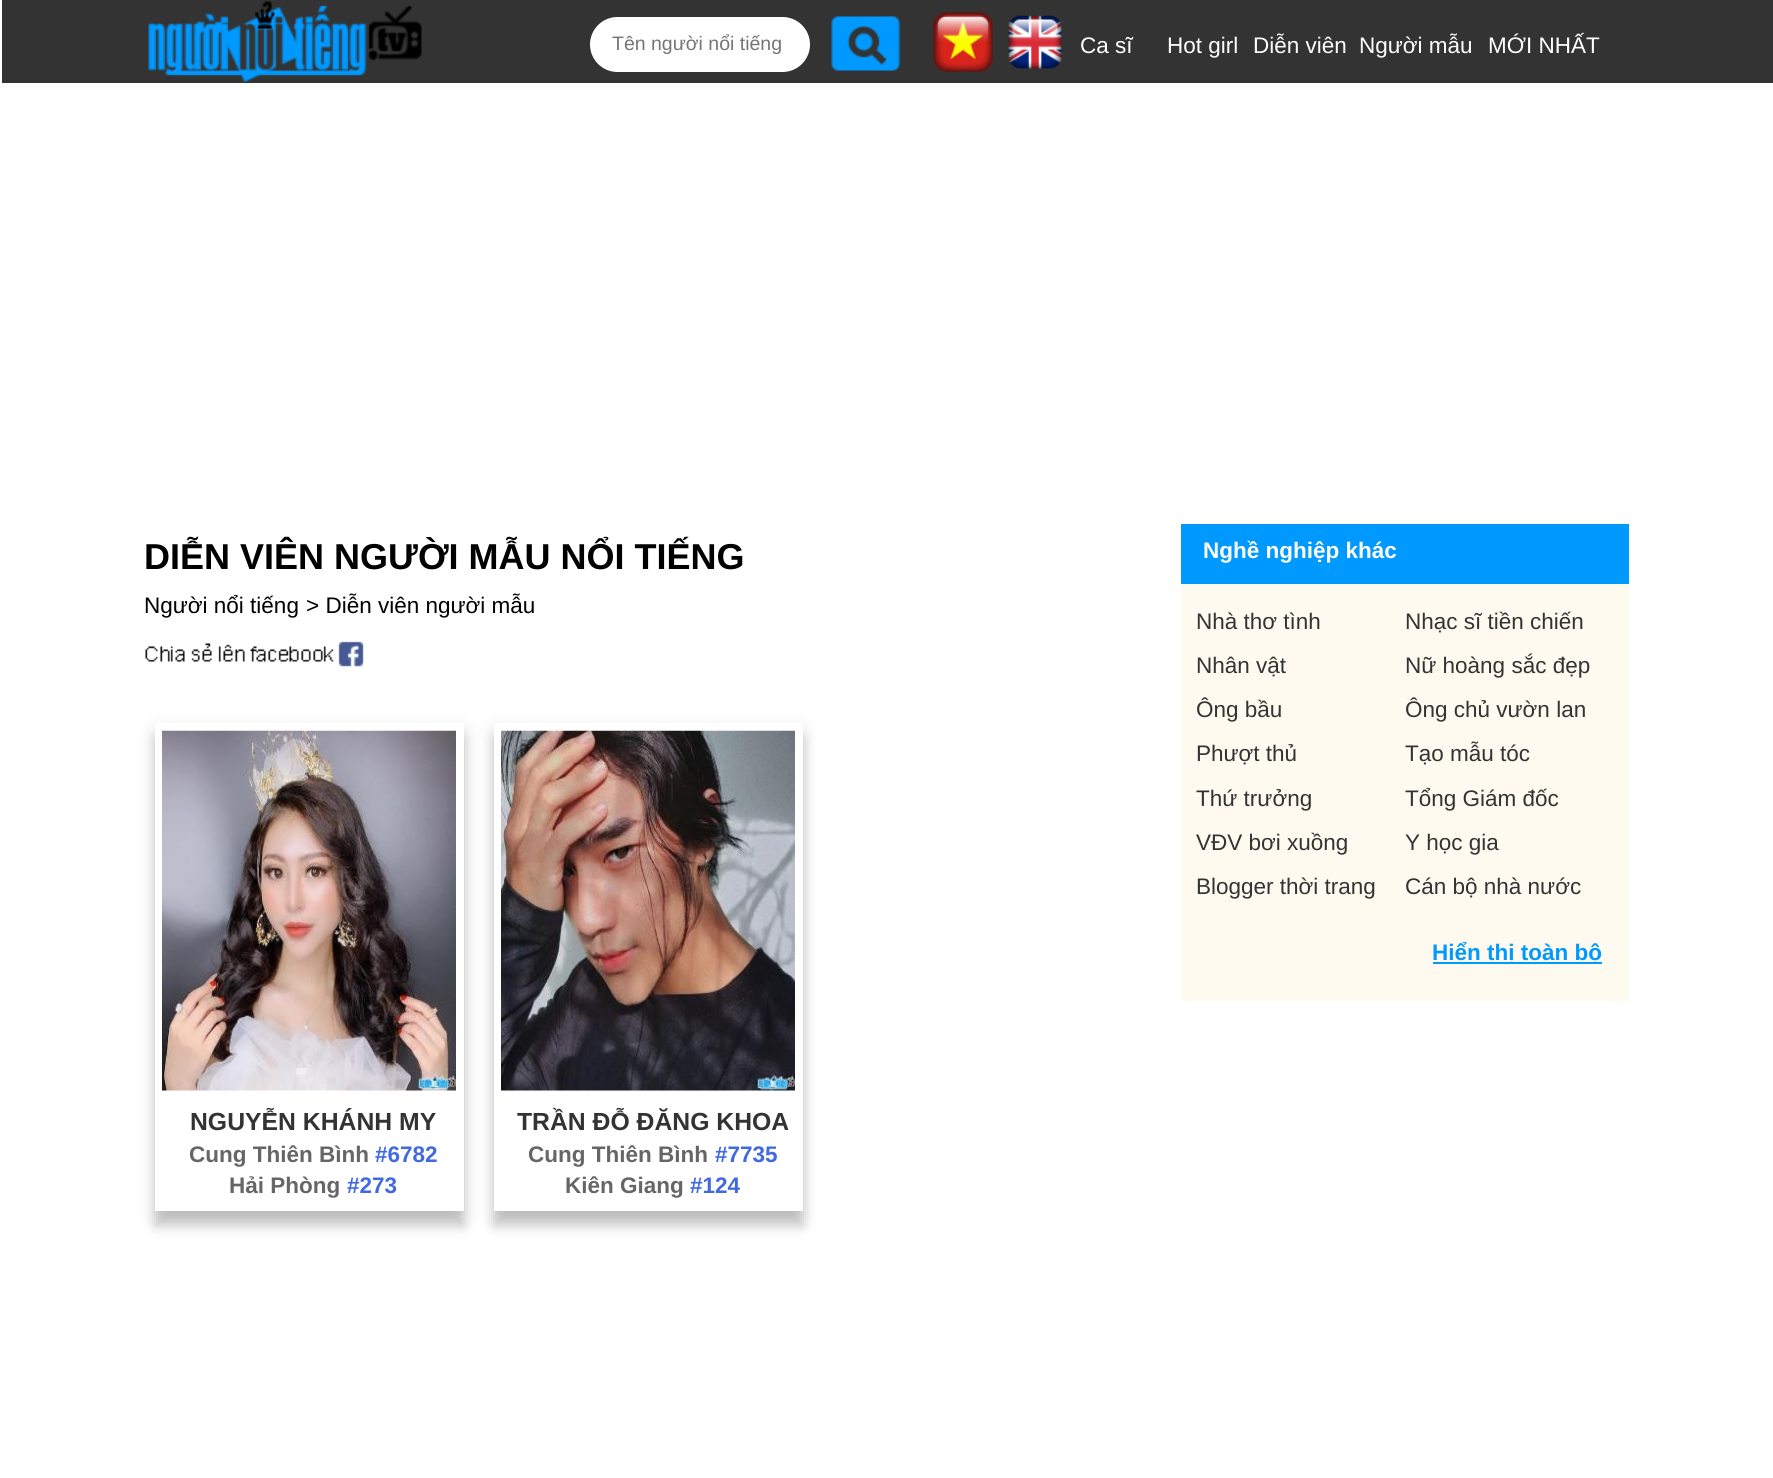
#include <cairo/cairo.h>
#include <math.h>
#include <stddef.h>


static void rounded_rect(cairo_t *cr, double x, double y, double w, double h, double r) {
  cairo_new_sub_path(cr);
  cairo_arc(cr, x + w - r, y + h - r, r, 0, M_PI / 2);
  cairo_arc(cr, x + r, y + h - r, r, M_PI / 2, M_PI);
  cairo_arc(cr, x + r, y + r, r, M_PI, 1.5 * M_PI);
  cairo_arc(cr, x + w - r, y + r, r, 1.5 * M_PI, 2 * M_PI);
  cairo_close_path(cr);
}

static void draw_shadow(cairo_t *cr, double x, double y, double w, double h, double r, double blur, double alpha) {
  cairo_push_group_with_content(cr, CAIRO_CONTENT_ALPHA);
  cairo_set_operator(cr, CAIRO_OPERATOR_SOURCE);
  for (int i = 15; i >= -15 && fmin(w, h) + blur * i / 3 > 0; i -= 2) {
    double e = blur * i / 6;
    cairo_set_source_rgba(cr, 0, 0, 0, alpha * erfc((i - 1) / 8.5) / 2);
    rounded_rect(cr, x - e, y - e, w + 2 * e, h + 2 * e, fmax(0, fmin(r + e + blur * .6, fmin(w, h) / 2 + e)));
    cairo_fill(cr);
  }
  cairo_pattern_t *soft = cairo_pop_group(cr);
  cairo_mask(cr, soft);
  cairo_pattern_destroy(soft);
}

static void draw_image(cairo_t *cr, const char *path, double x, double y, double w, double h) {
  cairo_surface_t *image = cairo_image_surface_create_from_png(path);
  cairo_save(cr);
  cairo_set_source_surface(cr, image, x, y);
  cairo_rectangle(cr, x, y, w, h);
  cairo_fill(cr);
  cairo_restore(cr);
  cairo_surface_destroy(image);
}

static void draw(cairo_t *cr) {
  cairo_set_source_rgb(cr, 1, 1, 1);
  cairo_paint(cr);
  cairo_set_source_rgb(cr, 51 / 255.0, 51 / 255.0, 51 / 255.0);
  cairo_rectangle(cr, 2, 0, 1771, 83);
  cairo_fill(cr);
  draw_image(cr, "images/1.png", 148, 1, 274, 82);
  cairo_set_source_rgb(cr, 1, 1, 1);
  rounded_rect(cr, 590, 17, 220, 55, 27.5);
  cairo_fill(cr);
  draw_image(cr, "images/2.png", 831, 16, 70, 55);
  draw_image(cr, "images/3.png", 933, 12, 60, 60);
  draw_image(cr, "images/4.png", 1008, 15, 54, 54);
  draw_image(cr, "images/5.png", 145, 641, 219, 26);
  cairo_save(cr);
  cairo_set_fill_rule(cr, CAIRO_FILL_RULE_EVEN_ODD);
  cairo_new_path(cr);
  cairo_move_to(cr, 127, 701);
  cairo_line_to(cr, 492, 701);
  cairo_line_to(cr, 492, 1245);
  cairo_line_to(cr, 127, 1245);
  cairo_close_path(cr);
  cairo_move_to(cr, 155, 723);
  cairo_line_to(cr, 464, 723);
  cairo_line_to(cr, 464, 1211);
  cairo_line_to(cr, 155, 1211);
  cairo_close_path(cr);
  cairo_clip(cr);
  cairo_set_source_rgb(cr, 0, 0, 0);
  draw_shadow(cr, 155, 729, 309, 488, 0, 9, 0.1);
  cairo_restore(cr);
  cairo_save(cr);
  cairo_set_fill_rule(cr, CAIRO_FILL_RULE_EVEN_ODD);
  cairo_new_path(cr);
  cairo_move_to(cr, 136, 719);
  cairo_line_to(cr, 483, 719);
  cairo_line_to(cr, 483, 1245);
  cairo_line_to(cr, 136, 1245);
  cairo_close_path(cr);
  cairo_move_to(cr, 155, 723);
  cairo_line_to(cr, 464, 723);
  cairo_line_to(cr, 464, 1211);
  cairo_line_to(cr, 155, 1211);
  cairo_close_path(cr);
  cairo_clip(cr);
  cairo_set_source_rgb(cr, 0, 0, 0);
  draw_shadow(cr, 155, 738, 309, 488, 0, 6, 0.2);
  cairo_restore(cr);
  cairo_rectangle(cr, 156.5, 724.5, 306, 485);
  cairo_set_line_width(cr, 3);
  cairo_stroke(cr);
  draw_image(cr, "images/6.png", 162, 730, 294, 361);
  cairo_save(cr);
  cairo_set_fill_rule(cr, CAIRO_FILL_RULE_EVEN_ODD);
  cairo_new_path(cr);
  cairo_move_to(cr, 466, 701);
  cairo_line_to(cr, 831, 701);
  cairo_line_to(cr, 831, 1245);
  cairo_line_to(cr, 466, 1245);
  cairo_close_path(cr);
  cairo_move_to(cr, 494, 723);
  cairo_line_to(cr, 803, 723);
  cairo_line_to(cr, 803, 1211);
  cairo_line_to(cr, 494, 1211);
  cairo_close_path(cr);
  cairo_clip(cr);
  cairo_set_source_rgb(cr, 0, 0, 0);
  draw_shadow(cr, 494, 729, 309, 488, 0, 9, 0.1);
  cairo_restore(cr);
  cairo_save(cr);
  cairo_set_fill_rule(cr, CAIRO_FILL_RULE_EVEN_ODD);
  cairo_new_path(cr);
  cairo_move_to(cr, 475, 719);
  cairo_line_to(cr, 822, 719);
  cairo_line_to(cr, 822, 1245);
  cairo_line_to(cr, 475, 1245);
  cairo_close_path(cr);
  cairo_move_to(cr, 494, 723);
  cairo_line_to(cr, 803, 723);
  cairo_line_to(cr, 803, 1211);
  cairo_line_to(cr, 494, 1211);
  cairo_close_path(cr);
  cairo_clip(cr);
  cairo_set_source_rgb(cr, 0, 0, 0);
  draw_shadow(cr, 494, 738, 309, 488, 0, 6, 0.2);
  cairo_restore(cr);
  cairo_rectangle(cr, 495.5, 724.5, 306, 485);
  cairo_stroke(cr);
  draw_image(cr, "images/7.png", 501, 730, 294, 361);
  cairo_set_source_rgb(cr, 1, 250 / 255.0, 240 / 255.0);
  cairo_rectangle(cr, 1181, 584, 448, 417);
  cairo_fill(cr);
  cairo_set_source_rgb(cr, 0, 153 / 255.0, 1);
  cairo_rectangle(cr, 1181, 524, 448, 60);
  cairo_fill(cr);
  cairo_rectangle(cr, 1433, 962, 169, 2);
  cairo_fill(cr);
  cairo_select_font_face(cr, "Liberation Sans", CAIRO_FONT_SLANT_NORMAL, CAIRO_FONT_WEIGHT_NORMAL);
  cairo_set_font_size(cr, 19.5);
  cairo_set_source_rgb(cr, 117 / 255.0, 117 / 255.0, 117 / 255.0);
  cairo_move_to(cr, 612, 50);
  cairo_show_text(cr, "Tên người nổi tiếng");
  cairo_set_font_size(cr, 22.5);
  cairo_set_source_rgb(cr, 1, 1, 1);
  cairo_move_to(cr, 1080, 53);
  cairo_show_text(cr, "Ca sĩ");
  cairo_move_to(cr, 1167, 53);
  cairo_show_text(cr, "Hot girl");
  cairo_move_to(cr, 1253, 53);
  cairo_show_text(cr, "Diễn viên");
  cairo_move_to(cr, 1359, 53);
  cairo_show_text(cr, "Người mẫu");
  cairo_move_to(cr, 1488, 53);
  cairo_show_text(cr, "MỚI NHẤT");
  cairo_select_font_face(cr, "Liberation Sans", CAIRO_FONT_SLANT_NORMAL, CAIRO_FONT_WEIGHT_BOLD);
  cairo_set_font_size(cr, 36);
  cairo_set_source_rgb(cr, 0, 0, 0);
  cairo_move_to(cr, 144, 569);
  cairo_show_text(cr, "DIỄN VIÊN NGƯỜI MẪU NỔI TIẾNG");
  cairo_select_font_face(cr, "Liberation Sans", CAIRO_FONT_SLANT_NORMAL, CAIRO_FONT_WEIGHT_NORMAL);
  cairo_set_font_size(cr, 22.5);
  cairo_move_to(cr, 144, 613);
  cairo_show_text(cr, "Người nổi tiếng");
  cairo_move_to(cr, 306, 613);
  cairo_show_text(cr, "> Diễn viên người mẫu");
  cairo_select_font_face(cr, "Liberation Sans", CAIRO_FONT_SLANT_NORMAL, CAIRO_FONT_WEIGHT_BOLD);
  cairo_set_font_size(cr, 24.75);
  cairo_set_source_rgb(cr, 51 / 255.0, 51 / 255.0, 51 / 255.0);
  cairo_move_to(cr, 190, 1130);
  cairo_show_text(cr, "NGUYỄN KHÁNH MY");
  cairo_set_font_size(cr, 22.5);
  cairo_set_source_rgb(cr, 102 / 255.0, 102 / 255.0, 102 / 255.0);
  cairo_move_to(cr, 189, 1162);
  cairo_show_text(cr, "Cung Thiên Bình");
  cairo_set_source_rgb(cr, 65 / 255.0, 105 / 255.0, 225 / 255.0);
  cairo_move_to(cr, 375, 1162);
  cairo_show_text(cr, "#6782");
  cairo_set_source_rgb(cr, 102 / 255.0, 102 / 255.0, 102 / 255.0);
  cairo_move_to(cr, 229, 1193);
  cairo_show_text(cr, "Hải Phòng");
  cairo_set_source_rgb(cr, 65 / 255.0, 105 / 255.0, 225 / 255.0);
  cairo_move_to(cr, 347, 1193);
  cairo_show_text(cr, "#273");
  cairo_set_font_size(cr, 24.75);
  cairo_set_source_rgb(cr, 51 / 255.0, 51 / 255.0, 51 / 255.0);
  cairo_move_to(cr, 517, 1130);
  cairo_show_text(cr, "TRẦN ĐỖ ĐĂNG KHOA");
  cairo_set_font_size(cr, 22.5);
  cairo_set_source_rgb(cr, 102 / 255.0, 102 / 255.0, 102 / 255.0);
  cairo_move_to(cr, 528, 1162);
  cairo_show_text(cr, "Cung Thiên Bình");
  cairo_set_source_rgb(cr, 65 / 255.0, 105 / 255.0, 225 / 255.0);
  cairo_move_to(cr, 715, 1162);
  cairo_show_text(cr, "#7735");
  cairo_set_source_rgb(cr, 102 / 255.0, 102 / 255.0, 102 / 255.0);
  cairo_move_to(cr, 565, 1193);
  cairo_show_text(cr, "Kiên Giang");
  cairo_set_source_rgb(cr, 65 / 255.0, 105 / 255.0, 225 / 255.0);
  cairo_move_to(cr, 690, 1193);
  cairo_show_text(cr, "#124");
  cairo_set_source_rgb(cr, 1, 1, 1);
  cairo_move_to(cr, 1203, 558);
  cairo_show_text(cr, "Nghề nghiệp khác");
  cairo_select_font_face(cr, "Liberation Sans", CAIRO_FONT_SLANT_NORMAL, CAIRO_FONT_WEIGHT_NORMAL);
  cairo_set_source_rgb(cr, 51 / 255.0, 51 / 255.0, 51 / 255.0);
  cairo_move_to(cr, 1196, 629);
  cairo_show_text(cr, "Nhà thơ tình");
  cairo_move_to(cr, 1405, 629);
  cairo_show_text(cr, "Nhạc sĩ tiền chiến");
  cairo_move_to(cr, 1196, 673);
  cairo_show_text(cr, "Nhân vật");
  cairo_move_to(cr, 1405, 673);
  cairo_show_text(cr, "Nữ hoàng sắc đẹp");
  cairo_move_to(cr, 1196, 717);
  cairo_show_text(cr, "Ông bầu");
  cairo_move_to(cr, 1405, 717);
  cairo_show_text(cr, "Ông chủ vườn lan");
  cairo_move_to(cr, 1196, 761);
  cairo_show_text(cr, "Phượt thủ");
  cairo_move_to(cr, 1405, 761);
  cairo_show_text(cr, "Tạo mẫu tóc");
  cairo_move_to(cr, 1196, 806);
  cairo_show_text(cr, "Thứ trưởng");
  cairo_move_to(cr, 1405, 806);
  cairo_show_text(cr, "Tổng Giám đốc");
  cairo_move_to(cr, 1196, 850);
  cairo_show_text(cr, "VĐV bơi xuồng");
  cairo_move_to(cr, 1405, 850);
  cairo_show_text(cr, "Y học gia");
  cairo_move_to(cr, 1196, 894);
  cairo_show_text(cr, "Blogger thời trang");
  cairo_move_to(cr, 1405, 894);
  cairo_show_text(cr, "Cán bộ nhà nước");
  cairo_select_font_face(cr, "Liberation Sans", CAIRO_FONT_SLANT_NORMAL, CAIRO_FONT_WEIGHT_BOLD);
  cairo_set_source_rgb(cr, 0, 153 / 255.0, 1);
  cairo_move_to(cr, 1432, 960);
  cairo_show_text(cr, "Hiển thị toàn bộ");
}

int main(void) {
  cairo_surface_t *surface = cairo_image_surface_create(CAIRO_FORMAT_RGB24, 1773, 1478);
  cairo_t *cr = cairo_create(surface);
  cairo_font_options_t *options = cairo_font_options_create();
  cairo_font_options_set_hint_metrics(options, CAIRO_HINT_METRICS_OFF);
  cairo_font_options_set_hint_style(options, CAIRO_HINT_STYLE_NONE);
  cairo_set_font_options(cr, options);
  cairo_set_miter_limit(cr, 4);
  draw(cr);
  cairo_surface_write_to_png(surface, "out.png");
  cairo_font_options_destroy(options);
  cairo_destroy(cr);
  cairo_surface_destroy(surface);
  return 0;
}
